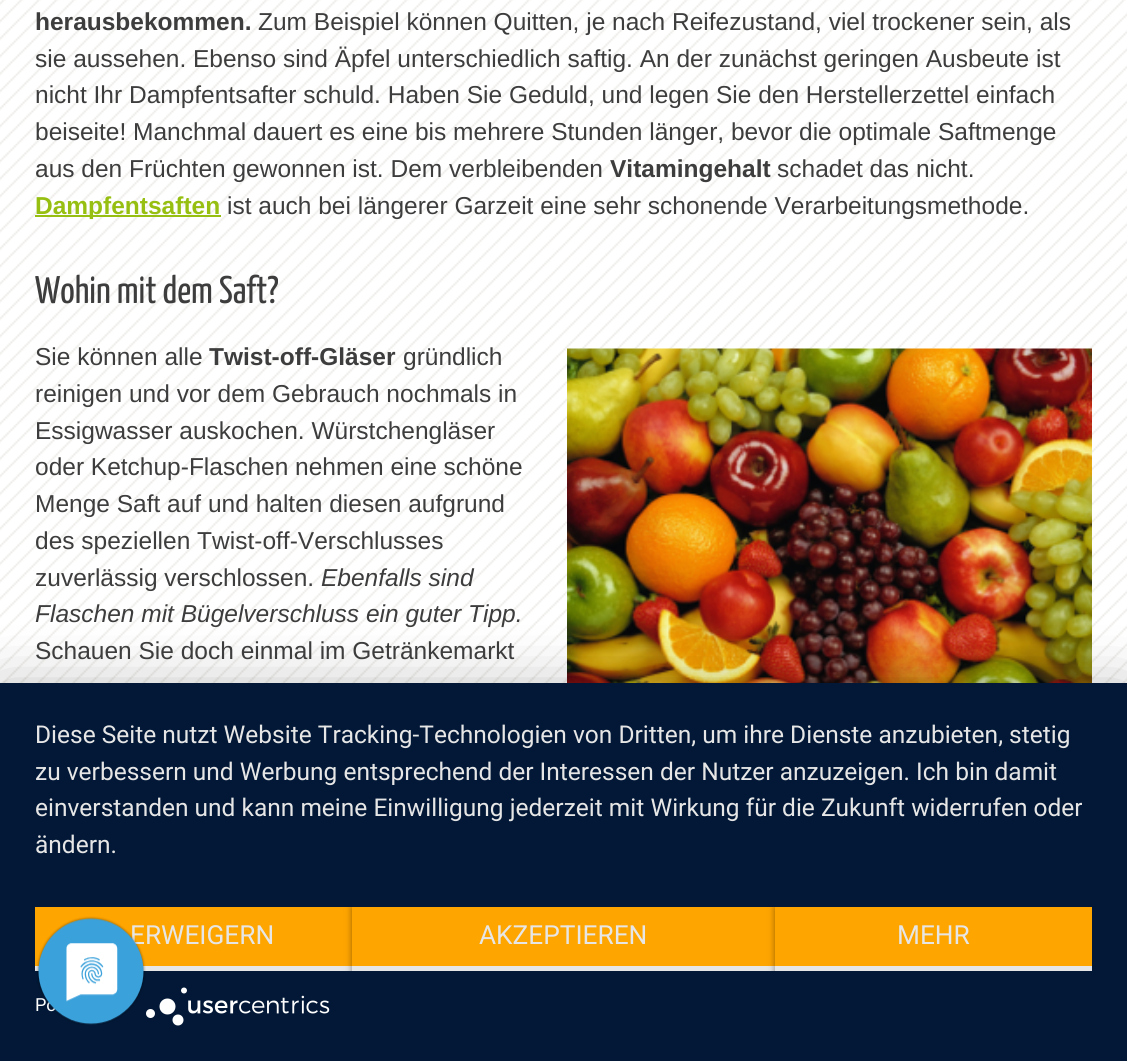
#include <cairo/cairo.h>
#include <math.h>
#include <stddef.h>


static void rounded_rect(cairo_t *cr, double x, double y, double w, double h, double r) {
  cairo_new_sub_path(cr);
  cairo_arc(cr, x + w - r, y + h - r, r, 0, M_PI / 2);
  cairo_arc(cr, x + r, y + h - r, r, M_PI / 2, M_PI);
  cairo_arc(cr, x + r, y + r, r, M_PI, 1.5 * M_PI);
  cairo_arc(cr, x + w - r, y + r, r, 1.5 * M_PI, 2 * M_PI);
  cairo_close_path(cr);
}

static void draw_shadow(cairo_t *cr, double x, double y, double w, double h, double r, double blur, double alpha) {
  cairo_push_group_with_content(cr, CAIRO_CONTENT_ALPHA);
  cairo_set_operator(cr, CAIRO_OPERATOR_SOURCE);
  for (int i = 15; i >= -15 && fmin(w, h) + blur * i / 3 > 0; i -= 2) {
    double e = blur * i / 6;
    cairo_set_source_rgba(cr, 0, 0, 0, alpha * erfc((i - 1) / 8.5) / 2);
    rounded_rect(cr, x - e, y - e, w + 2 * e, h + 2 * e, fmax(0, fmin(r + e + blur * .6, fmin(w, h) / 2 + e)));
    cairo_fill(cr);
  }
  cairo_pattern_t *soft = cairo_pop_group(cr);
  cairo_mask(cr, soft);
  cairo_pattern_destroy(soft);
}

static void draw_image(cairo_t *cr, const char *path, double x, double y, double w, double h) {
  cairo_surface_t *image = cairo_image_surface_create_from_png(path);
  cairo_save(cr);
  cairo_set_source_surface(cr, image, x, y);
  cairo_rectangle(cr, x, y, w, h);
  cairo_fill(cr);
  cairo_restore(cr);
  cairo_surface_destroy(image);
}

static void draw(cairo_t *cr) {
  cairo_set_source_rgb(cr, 1, 1, 1);
  cairo_paint(cr);
  draw_image(cr, "images/1.png", 0, 0, 1127, 683);
  cairo_set_source_rgb(cr, 150 / 255.0, 191 / 255.0, 17 / 255.0);
  cairo_rectangle(cr, 35, 215, 186, 2);
  cairo_fill(cr);
  draw_image(cr, "images/2.png", 567, 348, 525, 335);
  cairo_set_source_rgb(cr, 0, 0, 0);
  draw_shadow(cr, 0, 693, 1127, 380, 0, 31.5, 0.3);
  cairo_set_source_rgb(cr, 2 / 255.0, 24 / 255.0, 54 / 255.0);
  cairo_rectangle(cr, 0, 683, 1127, 378);
  cairo_fill(cr);
  cairo_set_source_rgb(cr, 1, 165 / 255.0, 0);
  cairo_rectangle(cr, 35, 907, 317, 59);
  cairo_fill(cr);
  cairo_set_source_rgb(cr, 230 / 255.0, 230 / 255.0, 230 / 255.0);
  cairo_rectangle(cr, 35, 966, 317, 5);
  cairo_fill(cr);
  cairo_save(cr);
  cairo_rectangle(cr, 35, 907, 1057, 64);
  cairo_clip(cr);
  cairo_set_source_rgb(cr, 0, 0, 0);
  draw_shadow(cr, 352, 908, 423, 65, 0, 3.5, 0.4);
  cairo_restore(cr);
  cairo_set_source_rgb(cr, 1, 165 / 255.0, 0);
  cairo_rectangle(cr, 352, 907, 423, 59);
  cairo_fill(cr);
  cairo_set_source_rgb(cr, 230 / 255.0, 230 / 255.0, 230 / 255.0);
  cairo_rectangle(cr, 352, 966, 423, 5);
  cairo_fill(cr);
  cairo_save(cr);
  cairo_rectangle(cr, 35, 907, 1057, 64);
  cairo_clip(cr);
  cairo_set_source_rgb(cr, 0, 0, 0);
  draw_shadow(cr, 775, 908, 317, 65, 0, 3.5, 0.4);
  cairo_restore(cr);
  cairo_set_source_rgb(cr, 1, 165 / 255.0, 0);
  cairo_rectangle(cr, 775, 907, 317, 59);
  cairo_fill(cr);
  cairo_set_source_rgb(cr, 230 / 255.0, 230 / 255.0, 230 / 255.0);
  cairo_rectangle(cr, 775, 966, 317, 5);
  cairo_fill(cr);
  draw_image(cr, "images/3.png", 146, 987, 184, 39);
  cairo_select_font_face(cr, "Liberation Sans", CAIRO_FONT_SLANT_NORMAL, CAIRO_FONT_WEIGHT_BOLD);
  cairo_set_font_size(cr, 24.5);
  cairo_set_source_rgb(cr, 61 / 255.0, 61 / 255.0, 61 / 255.0);
  cairo_move_to(cr, 35, 30);
  cairo_show_text(cr, "herausbekommen.");
  cairo_select_font_face(cr, "Liberation Sans", CAIRO_FONT_SLANT_NORMAL, CAIRO_FONT_WEIGHT_NORMAL);
  cairo_move_to(cr, 258, 30);
  cairo_show_text(cr, "Zum Beispiel können Quitten, je nach Reifezustand, viel trockener sein, als");
  cairo_move_to(cr, 35, 67);
  cairo_show_text(cr, "sie aussehen. Ebenso sind Äpfel unterschiedlich saftig. An der zunächst geringen Ausbeute ist");
  cairo_move_to(cr, 35, 103);
  cairo_show_text(cr, "nicht Ihr Dampfentsafter schuld. Haben Sie Geduld, und legen Sie den Herstellerzettel einfach");
  cairo_move_to(cr, 35, 140);
  cairo_show_text(cr, "beiseite! Manchmal dauert es eine bis mehrere Stunden länger, bevor die optimale Saftmenge");
  cairo_move_to(cr, 35, 177);
  cairo_show_text(cr, "aus den Früchten gewonnen ist. Dem verbleibenden");
  cairo_select_font_face(cr, "Liberation Sans", CAIRO_FONT_SLANT_NORMAL, CAIRO_FONT_WEIGHT_BOLD);
  cairo_move_to(cr, 610, 177);
  cairo_show_text(cr, "Vitamingehalt");
  cairo_select_font_face(cr, "Liberation Sans", CAIRO_FONT_SLANT_NORMAL, CAIRO_FONT_WEIGHT_NORMAL);
  cairo_move_to(cr, 777, 177);
  cairo_show_text(cr, "schadet das nicht.");
  cairo_select_font_face(cr, "Liberation Sans", CAIRO_FONT_SLANT_NORMAL, CAIRO_FONT_WEIGHT_BOLD);
  cairo_set_source_rgb(cr, 150 / 255.0, 191 / 255.0, 17 / 255.0);
  cairo_move_to(cr, 35, 214);
  cairo_show_text(cr, "Dampfentsaften");
  cairo_select_font_face(cr, "Liberation Sans", CAIRO_FONT_SLANT_NORMAL, CAIRO_FONT_WEIGHT_NORMAL);
  cairo_set_source_rgb(cr, 61 / 255.0, 61 / 255.0, 61 / 255.0);
  cairo_move_to(cr, 227, 214);
  cairo_show_text(cr, "ist auch bei längerer Garzeit eine sehr schonende Verarbeitungsmethode.");
  cairo_select_font_face(cr, "Yanone Kaffeesatz", CAIRO_FONT_SLANT_NORMAL, CAIRO_FONT_WEIGHT_NORMAL);
  cairo_set_font_size(cr, 38.5);
  cairo_move_to(cr, 35, 303);
  cairo_show_text(cr, "Wohin mit dem Saft?");
  cairo_select_font_face(cr, "Liberation Sans", CAIRO_FONT_SLANT_NORMAL, CAIRO_FONT_WEIGHT_NORMAL);
  cairo_set_font_size(cr, 24.5);
  cairo_move_to(cr, 35, 365);
  cairo_show_text(cr, "Sie können alle");
  cairo_select_font_face(cr, "Liberation Sans", CAIRO_FONT_SLANT_NORMAL, CAIRO_FONT_WEIGHT_BOLD);
  cairo_move_to(cr, 209, 365);
  cairo_show_text(cr, "Twist-off-Gläser");
  cairo_select_font_face(cr, "Liberation Sans", CAIRO_FONT_SLANT_NORMAL, CAIRO_FONT_WEIGHT_NORMAL);
  cairo_move_to(cr, 403, 365);
  cairo_show_text(cr, "gründlich");
  cairo_move_to(cr, 35, 402);
  cairo_show_text(cr, "reinigen und vor dem Gebrauch nochmals in");
  cairo_move_to(cr, 35, 439);
  cairo_show_text(cr, "Essigwasser auskochen. Würstchengläser");
  cairo_move_to(cr, 35, 475);
  cairo_show_text(cr, "oder Ketchup-Flaschen nehmen eine schöne");
  cairo_move_to(cr, 35, 512);
  cairo_show_text(cr, "Menge Saft auf und halten diesen aufgrund");
  cairo_move_to(cr, 35, 549);
  cairo_show_text(cr, "des speziellen Twist-off-Verschlusses");
  cairo_move_to(cr, 35, 586);
  cairo_show_text(cr, "zuverlässig verschlossen.");
  cairo_select_font_face(cr, "Liberation Sans", CAIRO_FONT_SLANT_ITALIC, CAIRO_FONT_WEIGHT_NORMAL);
  cairo_move_to(cr, 321, 586);
  cairo_show_text(cr, "Ebenfalls sind");
  cairo_move_to(cr, 35, 622);
  cairo_show_text(cr, "Flaschen mit Bügelverschluss ein guter Tipp.");
  cairo_select_font_face(cr, "Liberation Sans", CAIRO_FONT_SLANT_NORMAL, CAIRO_FONT_WEIGHT_NORMAL);
  cairo_move_to(cr, 35, 659);
  cairo_show_text(cr, "Schauen Sie doch einmal im Getränkemarkt");
  cairo_select_font_face(cr, "Roboto", CAIRO_FONT_SLANT_NORMAL, CAIRO_FONT_WEIGHT_NORMAL);
  cairo_set_source_rgb(cr, 230 / 255.0, 230 / 255.0, 230 / 255.0);
  cairo_move_to(cr, 35, 743);
  cairo_show_text(cr, "Diese Seite nutzt Website Tracking-Technologien von Dritten, um ihre Dienste anzubieten, stetig");
  cairo_move_to(cr, 35, 780);
  cairo_show_text(cr, "zu verbessern und Werbung entsprechend der Interessen der Nutzer anzuzeigen. Ich bin damit");
  cairo_move_to(cr, 35, 816);
  cairo_show_text(cr, "einverstanden und kann meine Einwilligung jederzeit mit Wirkung für die Zukunft widerrufen oder");
  cairo_move_to(cr, 35, 853);
  cairo_show_text(cr, "ändern.");
  cairo_set_font_size(cr, 26.25);
  cairo_move_to(cr, 130, 944);
  cairo_show_text(cr, "ERWEIGERN");
  cairo_move_to(cr, 479, 944);
  cairo_show_text(cr, "AKZEPTIEREN");
  cairo_move_to(cr, 897, 944);
  cairo_show_text(cr, "MEHR");
  cairo_set_font_size(cr, 18);
  cairo_set_source_rgb(cr, 1, 1, 1);
  cairo_move_to(cr, 35, 1011);
  cairo_show_text(cr, "Po");
  draw_image(cr, "images/4.png", 36, 916, 110, 109);
}

int main(void) {
  cairo_surface_t *surface = cairo_image_surface_create(CAIRO_FORMAT_RGB24, 1127, 1061);
  cairo_t *cr = cairo_create(surface);
  cairo_font_options_t *options = cairo_font_options_create();
  cairo_font_options_set_hint_metrics(options, CAIRO_HINT_METRICS_OFF);
  cairo_font_options_set_hint_style(options, CAIRO_HINT_STYLE_NONE);
  cairo_set_font_options(cr, options);
  cairo_set_miter_limit(cr, 4);
  draw(cr);
  cairo_surface_write_to_png(surface, "out.png");
  cairo_font_options_destroy(options);
  cairo_destroy(cr);
  cairo_surface_destroy(surface);
  return 0;
}
